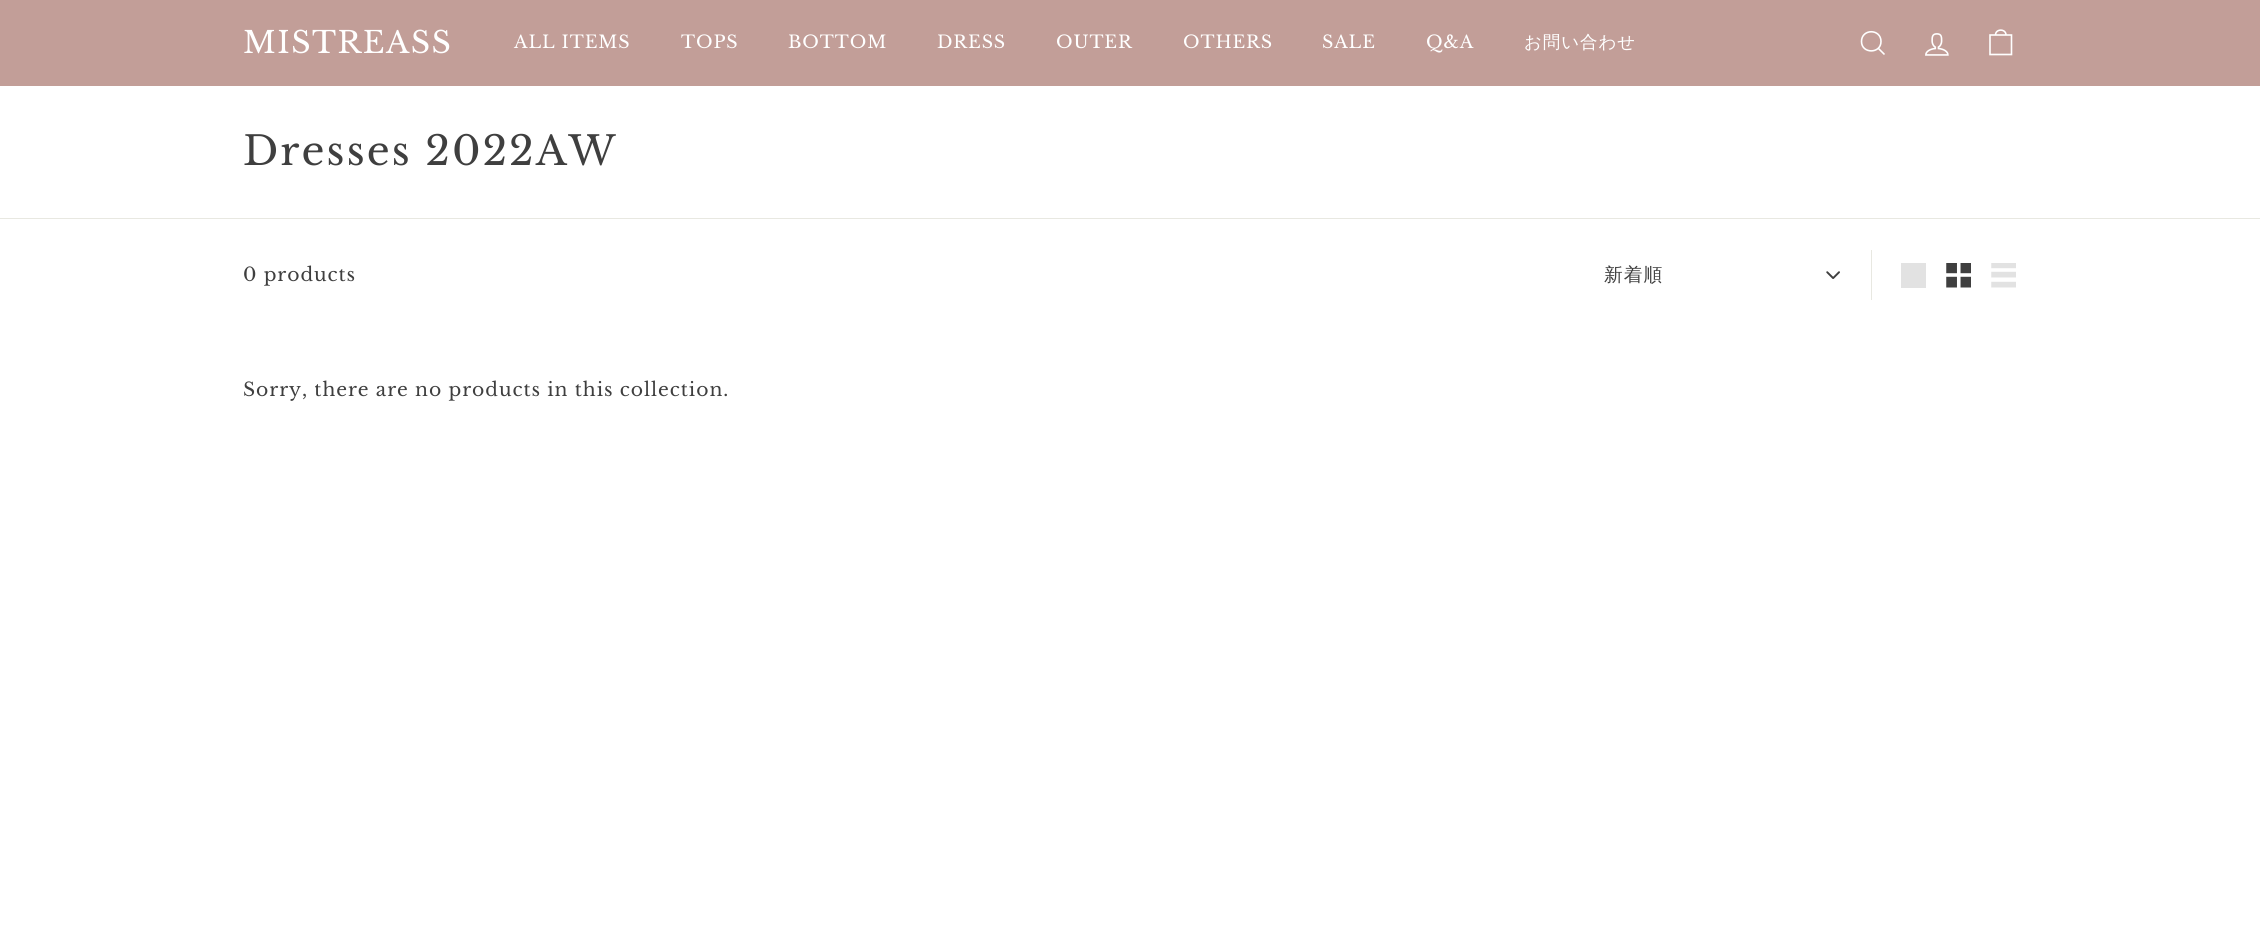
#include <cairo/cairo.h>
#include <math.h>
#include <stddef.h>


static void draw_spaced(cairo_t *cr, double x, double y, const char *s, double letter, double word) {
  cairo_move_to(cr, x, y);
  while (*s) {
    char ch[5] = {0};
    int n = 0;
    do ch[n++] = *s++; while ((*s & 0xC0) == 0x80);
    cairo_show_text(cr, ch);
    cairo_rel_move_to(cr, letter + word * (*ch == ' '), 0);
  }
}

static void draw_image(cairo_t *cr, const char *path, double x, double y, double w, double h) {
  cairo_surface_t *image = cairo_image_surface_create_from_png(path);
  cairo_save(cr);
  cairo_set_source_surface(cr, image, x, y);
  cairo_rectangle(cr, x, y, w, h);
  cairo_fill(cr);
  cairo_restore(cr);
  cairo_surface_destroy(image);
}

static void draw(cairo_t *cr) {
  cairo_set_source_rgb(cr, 1, 1, 1);
  cairo_paint(cr);
  cairo_set_source_rgb(cr, 194 / 255.0, 158 / 255.0, 152 / 255.0);
  cairo_rectangle(cr, 0, 0, 2260, 86);
  cairo_fill(cr);
  cairo_new_path(cr);
  cairo_move_to(cr, 1881, 41.5);
  cairo_curve_to(cr, 1881, 54, 1861.5, 54, 1861.5, 41.5);
  cairo_curve_to(cr, 1861.5, 28.5, 1881, 28.5, 1881, 41.5);
  cairo_close_path(cr);
  cairo_move_to(cr, 1884.5, 54.5);
  cairo_line_to(cr, 1878.5, 48.5);
  cairo_set_source_rgb(cr, 1, 1, 1);
  cairo_set_line_width(cr, 1.6);
  cairo_stroke(cr);
  draw_image(cr, "images/1.png", 1925, 33, 24, 23);
  cairo_new_path(cr);
  cairo_move_to(cr, 1995.5, 35);
  cairo_curve_to(cr, 1995.5, 28.5, 2006, 28.5, 2006, 35);
  cairo_move_to(cr, 1990, 35);
  cairo_line_to(cr, 2011.5, 35);
  cairo_line_to(cr, 2011.5, 54.5);
  cairo_line_to(cr, 1990, 54.5);
  cairo_close_path(cr);
  cairo_stroke(cr);
  cairo_set_source_rgb(cr, 232 / 255.0, 232 / 255.0, 225 / 255.0);
  cairo_rectangle(cr, 0, 218, 2260, 1);
  cairo_fill(cr);
  cairo_rectangle(cr, 1871, 250, 1, 50);
  cairo_fill(cr);
  draw_image(cr, "images/2.png", 1826, 271, 14, 8);
  cairo_set_source_rgb(cr, 226 / 255.0, 226 / 255.0, 226 / 255.0);
  cairo_rectangle(cr, 1901, 263, 25, 25);
  cairo_fill(cr);
  draw_image(cr, "images/3.png", 1946, 263, 25, 25);
  draw_image(cr, "images/4.png", 1991, 263, 25, 25);
  cairo_select_font_face(cr, "Libre Baskerville", CAIRO_FONT_SLANT_NORMAL, CAIRO_FONT_WEIGHT_NORMAL);
  cairo_set_font_size(cr, 30);
  cairo_set_source_rgb(cr, 1, 1, 1);
  draw_spaced(cr, 243, 53, "MISTREASS", 1.5, 0);
  cairo_set_font_size(cr, 17.5);
  draw_spaced(cr, 514, 48, "ALL ITEMS", 0.9, 0);
  draw_spaced(cr, 681, 48, "TOPS", 0.9, 0);
  draw_spaced(cr, 788, 48, "BOTTOM", 0.9, 0);
  draw_spaced(cr, 937, 48, "DRESS", 0.9, 0);
  draw_spaced(cr, 1056, 48, "OUTER", 0.9, 0);
  draw_spaced(cr, 1183, 48, "OTHERS", 0.9, 0);
  draw_spaced(cr, 1322, 48, "SALE", 0.9, 0);
  draw_spaced(cr, 1426, 48, "Q&A", 0.9, 0);
  cairo_select_font_face(cr, "WenQuanYi Zen Hei Medium", CAIRO_FONT_SLANT_NORMAL, CAIRO_FONT_WEIGHT_NORMAL);
  draw_spaced(cr, 1524, 48, "お問い合わせ", 0.9, 0);
  cairo_select_font_face(cr, "Libre Baskerville", CAIRO_FONT_SLANT_NORMAL, CAIRO_FONT_WEIGHT_NORMAL);
  cairo_set_font_size(cr, 40);
  cairo_set_source_rgb(cr, 63 / 255.0, 63 / 255.0, 63 / 255.0);
  draw_spaced(cr, 243, 165, "Dresses 2022AW", 2, 0);
  cairo_set_font_size(cr, 18.75);
  draw_spaced(cr, 243, 281, "0 products", 0.95, 0);
  cairo_select_font_face(cr, "WenQuanYi Zen Hei Medium", CAIRO_FONT_SLANT_NORMAL, CAIRO_FONT_WEIGHT_NORMAL);
  draw_spaced(cr, 1604, 281, "新着順", 0.95, 0);
  cairo_select_font_face(cr, "Libre Baskerville", CAIRO_FONT_SLANT_NORMAL, CAIRO_FONT_WEIGHT_NORMAL);
  draw_spaced(cr, 243, 396, "Sorry, there are no products in this collection.", 0.95, 0);
}

int main(void) {
  cairo_surface_t *surface = cairo_image_surface_create(CAIRO_FORMAT_RGB24, 2260, 940);
  cairo_t *cr = cairo_create(surface);
  cairo_font_options_t *options = cairo_font_options_create();
  cairo_font_options_set_hint_metrics(options, CAIRO_HINT_METRICS_OFF);
  cairo_font_options_set_hint_style(options, CAIRO_HINT_STYLE_NONE);
  cairo_set_font_options(cr, options);
  cairo_set_miter_limit(cr, 4);
  draw(cr);
  cairo_surface_write_to_png(surface, "out.png");
  cairo_font_options_destroy(options);
  cairo_destroy(cr);
  cairo_surface_destroy(surface);
  return 0;
}
